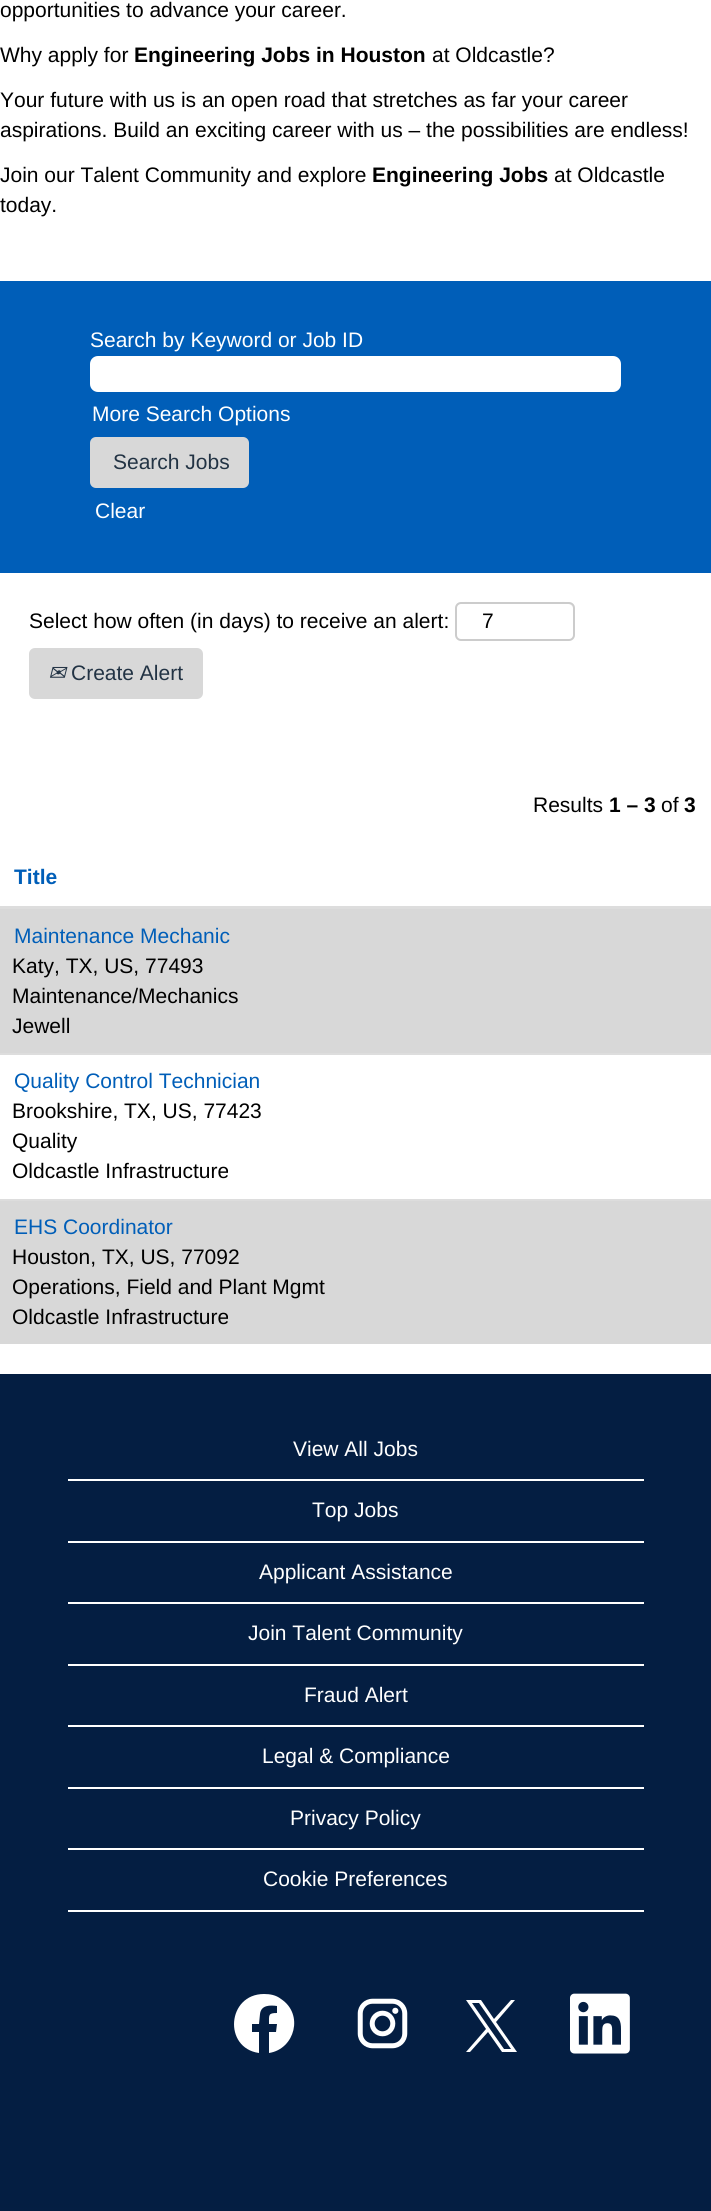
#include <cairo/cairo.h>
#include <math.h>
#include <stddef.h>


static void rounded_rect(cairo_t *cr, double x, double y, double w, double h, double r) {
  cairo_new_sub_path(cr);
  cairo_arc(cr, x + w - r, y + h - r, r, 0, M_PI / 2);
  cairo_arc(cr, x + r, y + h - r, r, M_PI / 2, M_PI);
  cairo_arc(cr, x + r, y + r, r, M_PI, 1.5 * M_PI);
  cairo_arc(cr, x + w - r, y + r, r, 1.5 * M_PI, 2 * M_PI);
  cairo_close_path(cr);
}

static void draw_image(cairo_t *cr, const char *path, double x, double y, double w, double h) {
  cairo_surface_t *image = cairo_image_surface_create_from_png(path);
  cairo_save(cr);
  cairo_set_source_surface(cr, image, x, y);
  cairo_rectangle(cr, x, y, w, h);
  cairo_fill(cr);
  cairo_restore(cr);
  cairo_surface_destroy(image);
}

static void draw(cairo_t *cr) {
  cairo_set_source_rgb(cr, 1, 1, 1);
  cairo_paint(cr);
  cairo_set_source_rgb(cr, 0, 94 / 255.0, 184 / 255.0);
  cairo_rectangle(cr, 0, 281, 711, 292);
  cairo_fill(cr);
  cairo_set_source_rgb(cr, 1, 1, 1);
  rounded_rect(cr, 90, 356, 531, 36, 8);
  cairo_fill(cr);
  cairo_set_source_rgb(cr, 216 / 255.0, 216 / 255.0, 216 / 255.0);
  rounded_rect(cr, 90, 437, 159, 51, 6);
  cairo_fill(cr);
  cairo_set_source_rgb(cr, 236 / 255.0, 236 / 255.0, 236 / 255.0);
  cairo_new_path(cr);
  cairo_move_to(cr, 460, 604);
  cairo_line_to(cr, 568, 604);
  cairo_curve_to(cr, 571, 604, 573, 607, 573, 609);
  cairo_curve_to(cr, 573, 598, 555, 603, 550, 603);
  cairo_line_to(cr, 479, 603);
  cairo_curve_to(cr, 474, 603, 456, 598, 456, 609);
  cairo_curve_to(cr, 456, 607, 458, 604, 460, 604);
  cairo_close_path(cr);
  cairo_fill(cr);
  rounded_rect(cr, 456, 603, 118, 37, 5);
  cairo_set_source_rgb(cr, 204 / 255.0, 204 / 255.0, 204 / 255.0);
  cairo_stroke(cr);
  cairo_set_source_rgb(cr, 216 / 255.0, 216 / 255.0, 216 / 255.0);
  rounded_rect(cr, 29, 648, 174, 51, 6);
  cairo_fill(cr);
  cairo_set_source_rgb(cr, 221 / 255.0, 221 / 255.0, 221 / 255.0);
  cairo_rectangle(cr, 0, 906, 711, 3);
  cairo_fill(cr);
  cairo_set_source_rgb(cr, 216 / 255.0, 216 / 255.0, 216 / 255.0);
  cairo_rectangle(cr, 0, 909, 711, 144);
  cairo_fill(cr);
  cairo_set_source_rgb(cr, 221 / 255.0, 221 / 255.0, 221 / 255.0);
  cairo_rectangle(cr, 0, 1053, 711, 2);
  cairo_fill(cr);
  cairo_set_source_rgb(cr, 216 / 255.0, 216 / 255.0, 216 / 255.0);
  cairo_rectangle(cr, 0, 1201, 711, 143);
  cairo_fill(cr);
  cairo_set_source_rgb(cr, 221 / 255.0, 221 / 255.0, 221 / 255.0);
  cairo_rectangle(cr, 0, 1199, 711, 2);
  cairo_fill(cr);
  cairo_set_source_rgb(cr, 4 / 255.0, 30 / 255.0, 66 / 255.0);
  cairo_rectangle(cr, 0, 1374, 711, 837);
  cairo_fill(cr);
  cairo_set_source_rgb(cr, 1, 1, 1);
  cairo_rectangle(cr, 68, 1479, 576, 2);
  cairo_fill(cr);
  cairo_rectangle(cr, 68, 1541, 576, 2);
  cairo_fill(cr);
  cairo_rectangle(cr, 68, 1602, 576, 2);
  cairo_fill(cr);
  cairo_rectangle(cr, 68, 1664, 576, 2);
  cairo_fill(cr);
  cairo_rectangle(cr, 68, 1725, 576, 2);
  cairo_fill(cr);
  cairo_rectangle(cr, 68, 1787, 576, 2);
  cairo_fill(cr);
  cairo_rectangle(cr, 68, 1848, 576, 2);
  cairo_fill(cr);
  cairo_rectangle(cr, 68, 1910, 576, 2);
  cairo_fill(cr);
  cairo_new_path(cr);
  cairo_move_to(cr, 264, 1994);
  cairo_curve_to(cr, 227, 1994, 223, 2048, 259, 2053);
  cairo_line_to(cr, 259, 2032);
  cairo_line_to(cr, 252, 2032);
  cairo_line_to(cr, 252, 2024);
  cairo_line_to(cr, 259, 2024);
  cairo_line_to(cr, 260, 2014);
  cairo_curve_to(cr, 261, 2005, 270, 2005, 277, 2006);
  cairo_line_to(cr, 277, 2013);
  cairo_curve_to(cr, 268, 2013, 269, 2015, 269, 2024);
  cairo_line_to(cr, 277, 2024);
  cairo_line_to(cr, 276, 2032);
  cairo_line_to(cr, 269, 2032);
  cairo_line_to(cr, 269, 2053);
  cairo_curve_to(cr, 295, 2049, 304, 2014, 281, 1999);
  cairo_curve_to(cr, 276, 1995, 270, 1994, 264, 1994);
  cairo_close_path(cr);
  cairo_fill(cr);
  draw_image(cr, "images/1.png", 357, 1998, 51, 51);
  cairo_new_path(cr);
  cairo_move_to(cr, 496, 2022);
  cairo_line_to(cr, 515, 2000);
  cairo_line_to(cr, 511, 2000);
  cairo_line_to(cr, 494, 2019);
  cairo_line_to(cr, 481, 2000);
  cairo_line_to(cr, 466, 2000);
  cairo_line_to(cr, 486, 2029);
  cairo_line_to(cr, 466, 2052);
  cairo_line_to(cr, 470, 2052);
  cairo_line_to(cr, 488, 2032);
  cairo_line_to(cr, 502, 2052);
  cairo_line_to(cr, 517, 2052);
  cairo_close_path(cr);
  cairo_move_to(cr, 490, 2029);
  cairo_line_to(cr, 472, 2003);
  cairo_line_to(cr, 479, 2003);
  cairo_line_to(cr, 511, 2049);
  cairo_line_to(cr, 504, 2049);
  cairo_close_path(cr);
  cairo_fill(cr);
  draw_image(cr, "images/2.png", 570, 1993, 60, 61);
  cairo_select_font_face(cr, "Liberation Sans", CAIRO_FONT_SLANT_NORMAL, CAIRO_FONT_WEIGHT_NORMAL);
  cairo_set_font_size(cr, 21);
  cairo_set_source_rgb(cr, 0, 0, 0);
  cairo_move_to(cr, 0, 17);
  cairo_show_text(cr, "opportunities to advance your career.");
  cairo_move_to(cr, 0, 62);
  cairo_show_text(cr, "Why apply for");
  cairo_select_font_face(cr, "Liberation Sans", CAIRO_FONT_SLANT_NORMAL, CAIRO_FONT_WEIGHT_BOLD);
  cairo_move_to(cr, 134, 62);
  cairo_show_text(cr, "Engineering Jobs in Houston");
  cairo_select_font_face(cr, "Liberation Sans", CAIRO_FONT_SLANT_NORMAL, CAIRO_FONT_WEIGHT_NORMAL);
  cairo_move_to(cr, 432, 62);
  cairo_show_text(cr, "at Oldcastle?");
  cairo_move_to(cr, 0, 107);
  cairo_show_text(cr, "Your future with us is an open road that stretches as far your career");
  cairo_move_to(cr, 0, 137);
  cairo_show_text(cr, "aspirations. Build an exciting career with us – the possibilities are endless!");
  cairo_move_to(cr, 0, 182);
  cairo_show_text(cr, "Join our Talent Community and explore");
  cairo_select_font_face(cr, "Liberation Sans", CAIRO_FONT_SLANT_NORMAL, CAIRO_FONT_WEIGHT_BOLD);
  cairo_move_to(cr, 372, 182);
  cairo_show_text(cr, "Engineering Jobs");
  cairo_select_font_face(cr, "Liberation Sans", CAIRO_FONT_SLANT_NORMAL, CAIRO_FONT_WEIGHT_NORMAL);
  cairo_move_to(cr, 554, 182);
  cairo_show_text(cr, "at Oldcastle");
  cairo_move_to(cr, 0, 212);
  cairo_show_text(cr, "today.");
  cairo_set_source_rgb(cr, 1, 1, 1);
  cairo_move_to(cr, 90, 347);
  cairo_show_text(cr, "Search by Keyword or Job ID");
  cairo_move_to(cr, 92, 421);
  cairo_show_text(cr, "More Search Options");
  cairo_set_source_rgb(cr, 34 / 255.0, 51 / 255.0, 68 / 255.0);
  cairo_move_to(cr, 113, 469);
  cairo_show_text(cr, "Search Jobs");
  cairo_set_source_rgb(cr, 1, 1, 1);
  cairo_move_to(cr, 95, 518);
  cairo_show_text(cr, "Clear");
  cairo_set_source_rgb(cr, 0, 0, 0);
  cairo_move_to(cr, 29, 628);
  cairo_show_text(cr, "Select how often (in days) to receive an alert:");
  cairo_move_to(cr, 482, 628);
  cairo_show_text(cr, "7");
  cairo_select_font_face(cr, "DejaVu Sans", CAIRO_FONT_SLANT_ITALIC, CAIRO_FONT_WEIGHT_NORMAL);
  cairo_set_source_rgb(cr, 34 / 255.0, 51 / 255.0, 68 / 255.0);
  cairo_move_to(cr, 48, 680);
  cairo_show_text(cr, "✉");
  cairo_select_font_face(cr, "Liberation Sans", CAIRO_FONT_SLANT_NORMAL, CAIRO_FONT_WEIGHT_NORMAL);
  cairo_move_to(cr, 71, 680);
  cairo_show_text(cr, "Create Alert");
  cairo_set_source_rgb(cr, 0, 0, 0);
  cairo_move_to(cr, 533, 812);
  cairo_show_text(cr, "Results");
  cairo_select_font_face(cr, "Liberation Sans", CAIRO_FONT_SLANT_NORMAL, CAIRO_FONT_WEIGHT_BOLD);
  cairo_move_to(cr, 609, 812);
  cairo_show_text(cr, "1 – 3");
  cairo_select_font_face(cr, "Liberation Sans", CAIRO_FONT_SLANT_NORMAL, CAIRO_FONT_WEIGHT_NORMAL);
  cairo_move_to(cr, 661, 812);
  cairo_show_text(cr, "of");
  cairo_select_font_face(cr, "Liberation Sans", CAIRO_FONT_SLANT_NORMAL, CAIRO_FONT_WEIGHT_BOLD);
  cairo_move_to(cr, 684, 812);
  cairo_show_text(cr, "3");
  cairo_set_source_rgb(cr, 0, 94 / 255.0, 184 / 255.0);
  cairo_move_to(cr, 14, 884);
  cairo_show_text(cr, "Title");
  cairo_select_font_face(cr, "Liberation Sans", CAIRO_FONT_SLANT_NORMAL, CAIRO_FONT_WEIGHT_NORMAL);
  cairo_move_to(cr, 14, 943);
  cairo_show_text(cr, "Maintenance Mechanic");
  cairo_set_source_rgb(cr, 0, 0, 0);
  cairo_move_to(cr, 12, 973);
  cairo_show_text(cr, "Katy, TX, US, 77493");
  cairo_move_to(cr, 12, 1003);
  cairo_show_text(cr, "Maintenance/Mechanics");
  cairo_move_to(cr, 12, 1033);
  cairo_show_text(cr, "Jewell");
  cairo_set_source_rgb(cr, 0, 94 / 255.0, 184 / 255.0);
  cairo_move_to(cr, 14, 1088);
  cairo_show_text(cr, "Quality Control Technician");
  cairo_set_source_rgb(cr, 0, 0, 0);
  cairo_move_to(cr, 12, 1118);
  cairo_show_text(cr, "Brookshire, TX, US, 77423");
  cairo_move_to(cr, 12, 1148);
  cairo_show_text(cr, "Quality");
  cairo_move_to(cr, 12, 1178);
  cairo_show_text(cr, "Oldcastle Infrastructure");
  cairo_set_source_rgb(cr, 0, 94 / 255.0, 184 / 255.0);
  cairo_move_to(cr, 14, 1234);
  cairo_show_text(cr, "EHS Coordinator");
  cairo_set_source_rgb(cr, 0, 0, 0);
  cairo_move_to(cr, 12, 1264);
  cairo_show_text(cr, "Houston, TX, US, 77092");
  cairo_move_to(cr, 12, 1294);
  cairo_show_text(cr, "Operations, Field and Plant Mgmt");
  cairo_move_to(cr, 12, 1324);
  cairo_show_text(cr, "Oldcastle Infrastructure");
  cairo_set_source_rgb(cr, 1, 1, 1);
  cairo_move_to(cr, 293, 1456);
  cairo_show_text(cr, "View All Jobs");
  cairo_move_to(cr, 312, 1517);
  cairo_show_text(cr, "Top Jobs");
  cairo_move_to(cr, 259, 1579);
  cairo_show_text(cr, "Applicant Assistance");
  cairo_move_to(cr, 248, 1640);
  cairo_show_text(cr, "Join Talent Community");
  cairo_move_to(cr, 304, 1702);
  cairo_show_text(cr, "Fraud Alert");
  cairo_move_to(cr, 262, 1763);
  cairo_show_text(cr, "Legal & Compliance");
  cairo_move_to(cr, 290, 1825);
  cairo_show_text(cr, "Privacy Policy");
  cairo_move_to(cr, 263, 1886);
  cairo_show_text(cr, "Cookie Preferences");
}

int main(void) {
  cairo_surface_t *surface = cairo_image_surface_create(CAIRO_FORMAT_RGB24, 711, 2211);
  cairo_t *cr = cairo_create(surface);
  cairo_font_options_t *options = cairo_font_options_create();
  cairo_font_options_set_hint_metrics(options, CAIRO_HINT_METRICS_OFF);
  cairo_font_options_set_hint_style(options, CAIRO_HINT_STYLE_NONE);
  cairo_set_font_options(cr, options);
  cairo_set_miter_limit(cr, 4);
  draw(cr);
  cairo_surface_write_to_png(surface, "out.png");
  cairo_font_options_destroy(options);
  cairo_destroy(cr);
  cairo_surface_destroy(surface);
  return 0;
}
